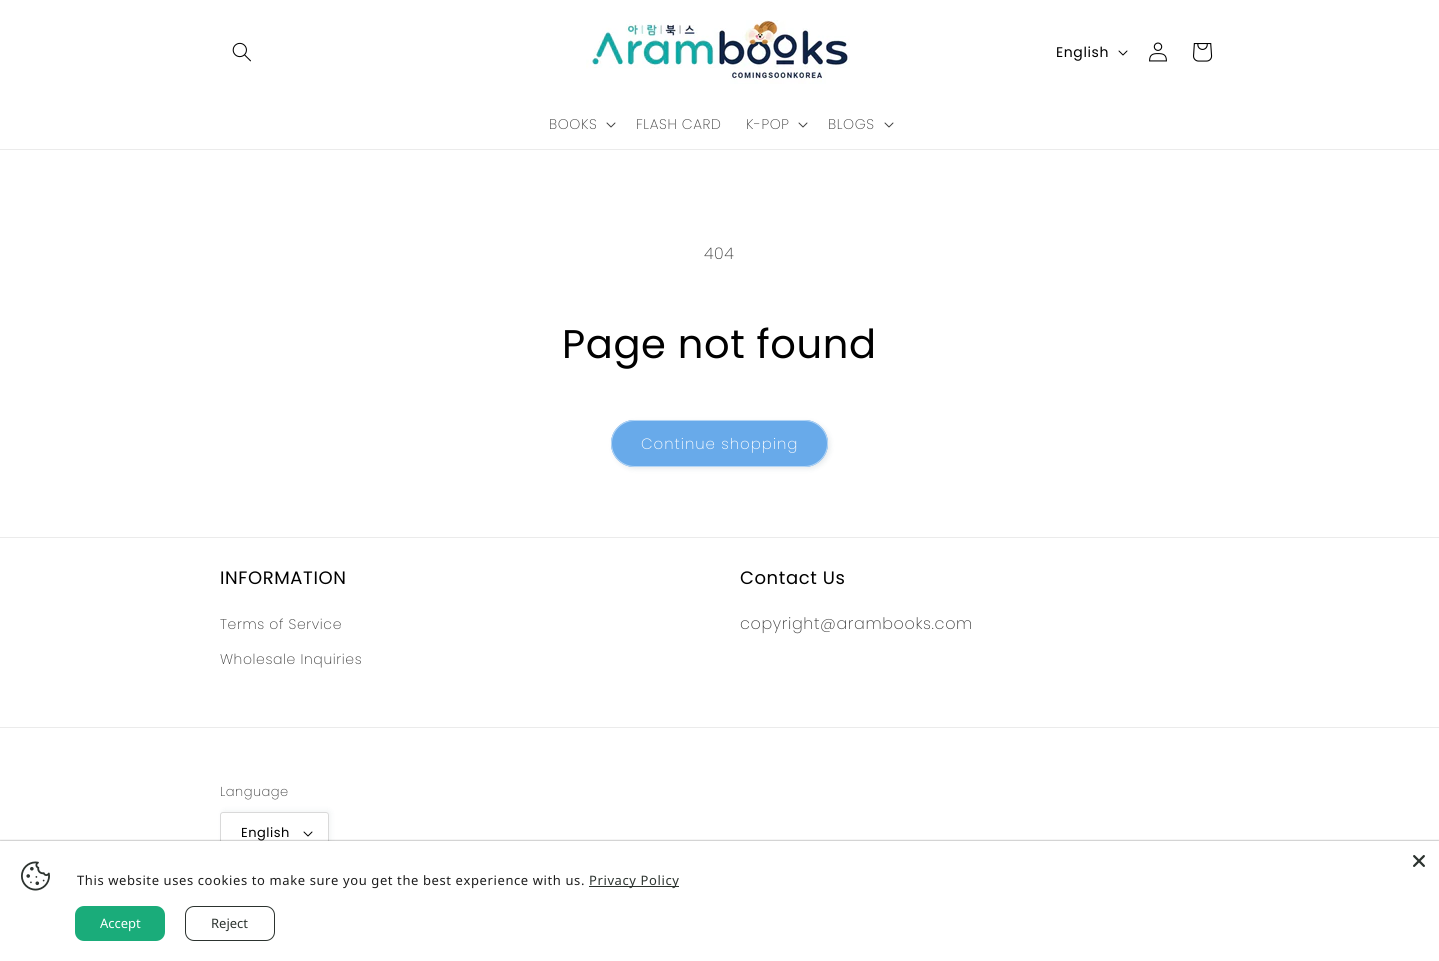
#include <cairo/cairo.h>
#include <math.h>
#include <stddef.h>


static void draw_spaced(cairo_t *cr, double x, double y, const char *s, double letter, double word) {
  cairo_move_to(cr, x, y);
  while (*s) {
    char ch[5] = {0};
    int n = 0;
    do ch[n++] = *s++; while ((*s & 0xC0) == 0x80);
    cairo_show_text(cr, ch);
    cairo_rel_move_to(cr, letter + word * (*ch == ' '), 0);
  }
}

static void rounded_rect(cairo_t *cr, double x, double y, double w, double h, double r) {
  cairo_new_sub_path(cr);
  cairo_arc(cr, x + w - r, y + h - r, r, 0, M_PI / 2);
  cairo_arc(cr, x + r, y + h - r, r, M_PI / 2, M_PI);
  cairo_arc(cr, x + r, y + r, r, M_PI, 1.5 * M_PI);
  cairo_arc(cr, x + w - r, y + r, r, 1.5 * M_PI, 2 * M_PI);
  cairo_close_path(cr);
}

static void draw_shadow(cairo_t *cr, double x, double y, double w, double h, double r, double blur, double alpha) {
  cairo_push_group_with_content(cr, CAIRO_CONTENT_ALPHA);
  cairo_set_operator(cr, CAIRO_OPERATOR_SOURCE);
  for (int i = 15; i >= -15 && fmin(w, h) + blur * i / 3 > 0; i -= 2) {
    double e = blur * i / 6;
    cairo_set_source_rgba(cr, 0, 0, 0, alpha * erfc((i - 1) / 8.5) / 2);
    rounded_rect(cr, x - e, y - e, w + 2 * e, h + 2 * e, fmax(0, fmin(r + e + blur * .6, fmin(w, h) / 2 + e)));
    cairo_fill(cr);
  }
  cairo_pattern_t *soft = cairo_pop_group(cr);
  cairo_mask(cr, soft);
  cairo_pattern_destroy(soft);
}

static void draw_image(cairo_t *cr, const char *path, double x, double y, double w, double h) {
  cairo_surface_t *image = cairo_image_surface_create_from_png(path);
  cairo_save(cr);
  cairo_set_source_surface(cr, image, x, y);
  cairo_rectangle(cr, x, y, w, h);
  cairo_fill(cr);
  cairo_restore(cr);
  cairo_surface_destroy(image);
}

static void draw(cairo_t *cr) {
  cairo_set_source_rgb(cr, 1, 1, 1);
  cairo_paint(cr);
  cairo_set_source_rgb(cr, 235 / 255.0, 235 / 255.0, 235 / 255.0);
  cairo_rectangle(cr, 0, 149, 1439, 1);
  cairo_fill(cr);
  draw_image(cr, "images/1.png", 232, 42, 19, 20);
  draw_image(cr, "images/2.png", 586, 20, 264, 64);
  draw_image(cr, "images/3.png", 1118, 50, 10, 6);
  draw_image(cr, "images/4.png", 1149, 42, 18, 20);
  draw_image(cr, "images/5.png", 1193, 43, 20, 19);
  draw_image(cr, "images/6.png", 606, 122, 10, 6);
  draw_image(cr, "images/6.png", 798, 122, 10, 6);
  draw_image(cr, "images/6.png", 884, 122, 10, 6);
  cairo_set_source_rgb(cr, 16 / 255.0, 57 / 255.0, 72 / 255.0);
  draw_shadow(cr, 613, 422, 217, 47, 23.5, 2.5, 0.1);
  cairo_set_source_rgb(cr, 104 / 255.0, 170 / 255.0, 234 / 255.0);
  rounded_rect(cr, 611, 420, 217, 47, 23.5);
  cairo_fill(cr);
  rounded_rect(cr, 611.5, 420.5, 216, 46, 23);
  cairo_set_line_width(cr, 1);
  cairo_stroke(cr);
  rounded_rect(cr, 611.5, 420.5, 216, 46, 23);
  cairo_set_source_rgba(cr, 1, 1, 1, 0.5);
  cairo_stroke(cr);
  cairo_set_source_rgb(cr, 235 / 255.0, 235 / 255.0, 235 / 255.0);
  cairo_rectangle(cr, 0, 537, 1439, 1);
  cairo_fill(cr);
  cairo_rectangle(cr, 0, 727, 1439, 1);
  cairo_fill(cr);
  cairo_set_source_rgb(cr, 16 / 255.0, 57 / 255.0, 72 / 255.0);
  draw_shadow(cr, 222, 810, 109, 42, 3, 2.5, 0.05);
  cairo_set_source_rgb(cr, 1, 1, 1);
  rounded_rect(cr, 220, 812, 109, 42, 3);
  cairo_fill(cr);
  draw_image(cr, "images/3.png", 303, 831, 10, 6);
  rounded_rect(cr, 220.5, 812.5, 108, 41, 2.5);
  cairo_set_source_rgb(cr, 217 / 255.0, 217 / 255.0, 217 / 255.0);
  cairo_stroke(cr);
  cairo_set_source_rgb(cr, 0, 0, 0);
  draw_shadow(cr, 0, 841, 1439, 120, 0, 1, 0.5);
  cairo_set_source_rgb(cr, 1, 1, 1);
  cairo_rectangle(cr, 0, 841, 1439, 120);
  cairo_fill(cr);
  draw_image(cr, "images/7.png", 1413, 855, 12, 12);
  draw_image(cr, "images/8.png", 21, 861, 29, 30);
  cairo_set_source_rgb(cr, 44 / 255.0, 51 / 255.0, 47 / 255.0);
  cairo_rectangle(cr, 589, 886, 90, 1);
  cairo_fill(cr);
  cairo_set_source_rgb(cr, 26 / 255.0, 172 / 255.0, 122 / 255.0);
  rounded_rect(cr, 75, 906, 90, 35, 9);
  cairo_fill(cr);
  rounded_rect(cr, 185.5, 906.5, 89, 34, 8.5);
  cairo_set_source_rgb(cr, 44 / 255.0, 51 / 255.0, 47 / 255.0);
  cairo_stroke(cr);
  cairo_select_font_face(cr, "Poppins", CAIRO_FONT_SLANT_NORMAL, CAIRO_FONT_WEIGHT_NORMAL);
  cairo_set_font_size(cr, 14);
  cairo_set_source_rgb(cr, 0, 0, 0);
  draw_spaced(cr, 1056, 57, "English", 0.6, 0);
  cairo_select_font_face(cr, "Poppins Light", CAIRO_FONT_SLANT_NORMAL, CAIRO_FONT_WEIGHT_NORMAL);
  cairo_set_source_rgb(cr, 64 / 255.0, 64 / 255.0, 64 / 255.0);
  draw_spaced(cr, 549, 129, "BOOKS", 0.6, 0);
  draw_spaced(cr, 636, 129, "FLASH CARD", 0.6, 0);
  draw_spaced(cr, 746, 129, "K-POP", 0.6, 0);
  draw_spaced(cr, 828, 129, "BLOGS", 0.6, 0);
  cairo_set_font_size(cr, 16);
  draw_spaced(cr, 704, 259, "404", 0.6, 0);
  cairo_select_font_face(cr, "Poppins", CAIRO_FONT_SLANT_NORMAL, CAIRO_FONT_WEIGHT_NORMAL);
  cairo_set_font_size(cr, 40);
  cairo_set_source_rgb(cr, 0, 0, 0);
  draw_spaced(cr, 562, 358, "Page not found", 0.6, 0);
  cairo_select_font_face(cr, "Poppins Light", CAIRO_FONT_SLANT_NORMAL, CAIRO_FONT_WEIGHT_NORMAL);
  cairo_set_font_size(cr, 15);
  cairo_set_source_rgb(cr, 1, 1, 1);
  draw_spaced(cr, 641, 449, "Continue shopping", 1, 0);
  cairo_select_font_face(cr, "Poppins", CAIRO_FONT_SLANT_NORMAL, CAIRO_FONT_WEIGHT_NORMAL);
  cairo_set_font_size(cr, 18);
  cairo_set_source_rgb(cr, 0, 0, 0);
  draw_spaced(cr, 220, 584, "INFORMATION", 0.6, 0);
  cairo_select_font_face(cr, "Poppins Light", CAIRO_FONT_SLANT_NORMAL, CAIRO_FONT_WEIGHT_NORMAL);
  cairo_set_font_size(cr, 14);
  cairo_set_source_rgb(cr, 64 / 255.0, 64 / 255.0, 64 / 255.0);
  draw_spaced(cr, 220, 629, "Terms of Service", 0.6, 0);
  draw_spaced(cr, 220, 664, "Wholesale Inquiries", 0.6, 0);
  cairo_select_font_face(cr, "Poppins", CAIRO_FONT_SLANT_NORMAL, CAIRO_FONT_WEIGHT_NORMAL);
  cairo_set_font_size(cr, 18);
  cairo_set_source_rgb(cr, 0, 0, 0);
  draw_spaced(cr, 740, 584, "Contact Us", 0.6, 0);
  cairo_select_font_face(cr, "Poppins Light", CAIRO_FONT_SLANT_NORMAL, CAIRO_FONT_WEIGHT_NORMAL);
  cairo_set_font_size(cr, 16);
  cairo_set_source_rgb(cr, 64 / 255.0, 64 / 255.0, 64 / 255.0);
  draw_spaced(cr, 740, 629, "copyright@arambooks.com", 0.6, 0);
  cairo_set_font_size(cr, 13);
  draw_spaced(cr, 220, 796, "Language", 0.5, 0);
  cairo_select_font_face(cr, "Poppins", CAIRO_FONT_SLANT_NORMAL, CAIRO_FONT_WEIGHT_NORMAL);
  cairo_set_source_rgb(cr, 0, 0, 0);
  draw_spaced(cr, 241, 837, "English", 0.5, 0);
  cairo_select_font_face(cr, "Noto Sans", CAIRO_FONT_SLANT_NORMAL, CAIRO_FONT_WEIGHT_NORMAL);
  cairo_set_source_rgb(cr, 29 / 255.0, 29 / 255.0, 29 / 255.0);
  draw_spaced(cr, 77, 885, "This website uses cookies to make sure you get the best experience with us.", 0.6, 0);
  cairo_set_source_rgb(cr, 44 / 255.0, 51 / 255.0, 47 / 255.0);
  draw_spaced(cr, 589, 885, "Privacy Policy", 0.6, 0);
  cairo_set_source_rgb(cr, 1, 1, 1);
  cairo_move_to(cr, 100, 928);
  cairo_show_text(cr, "Accept");
  cairo_set_source_rgb(cr, 44 / 255.0, 51 / 255.0, 47 / 255.0);
  cairo_move_to(cr, 211, 928);
  cairo_show_text(cr, "Reject");
}

int main(void) {
  cairo_surface_t *surface = cairo_image_surface_create(CAIRO_FORMAT_RGB24, 1439, 961);
  cairo_t *cr = cairo_create(surface);
  cairo_font_options_t *options = cairo_font_options_create();
  cairo_font_options_set_hint_metrics(options, CAIRO_HINT_METRICS_OFF);
  cairo_font_options_set_hint_style(options, CAIRO_HINT_STYLE_NONE);
  cairo_set_font_options(cr, options);
  cairo_set_miter_limit(cr, 4);
  draw(cr);
  cairo_surface_write_to_png(surface, "out.png");
  cairo_font_options_destroy(options);
  cairo_destroy(cr);
  cairo_surface_destroy(surface);
  return 0;
}
